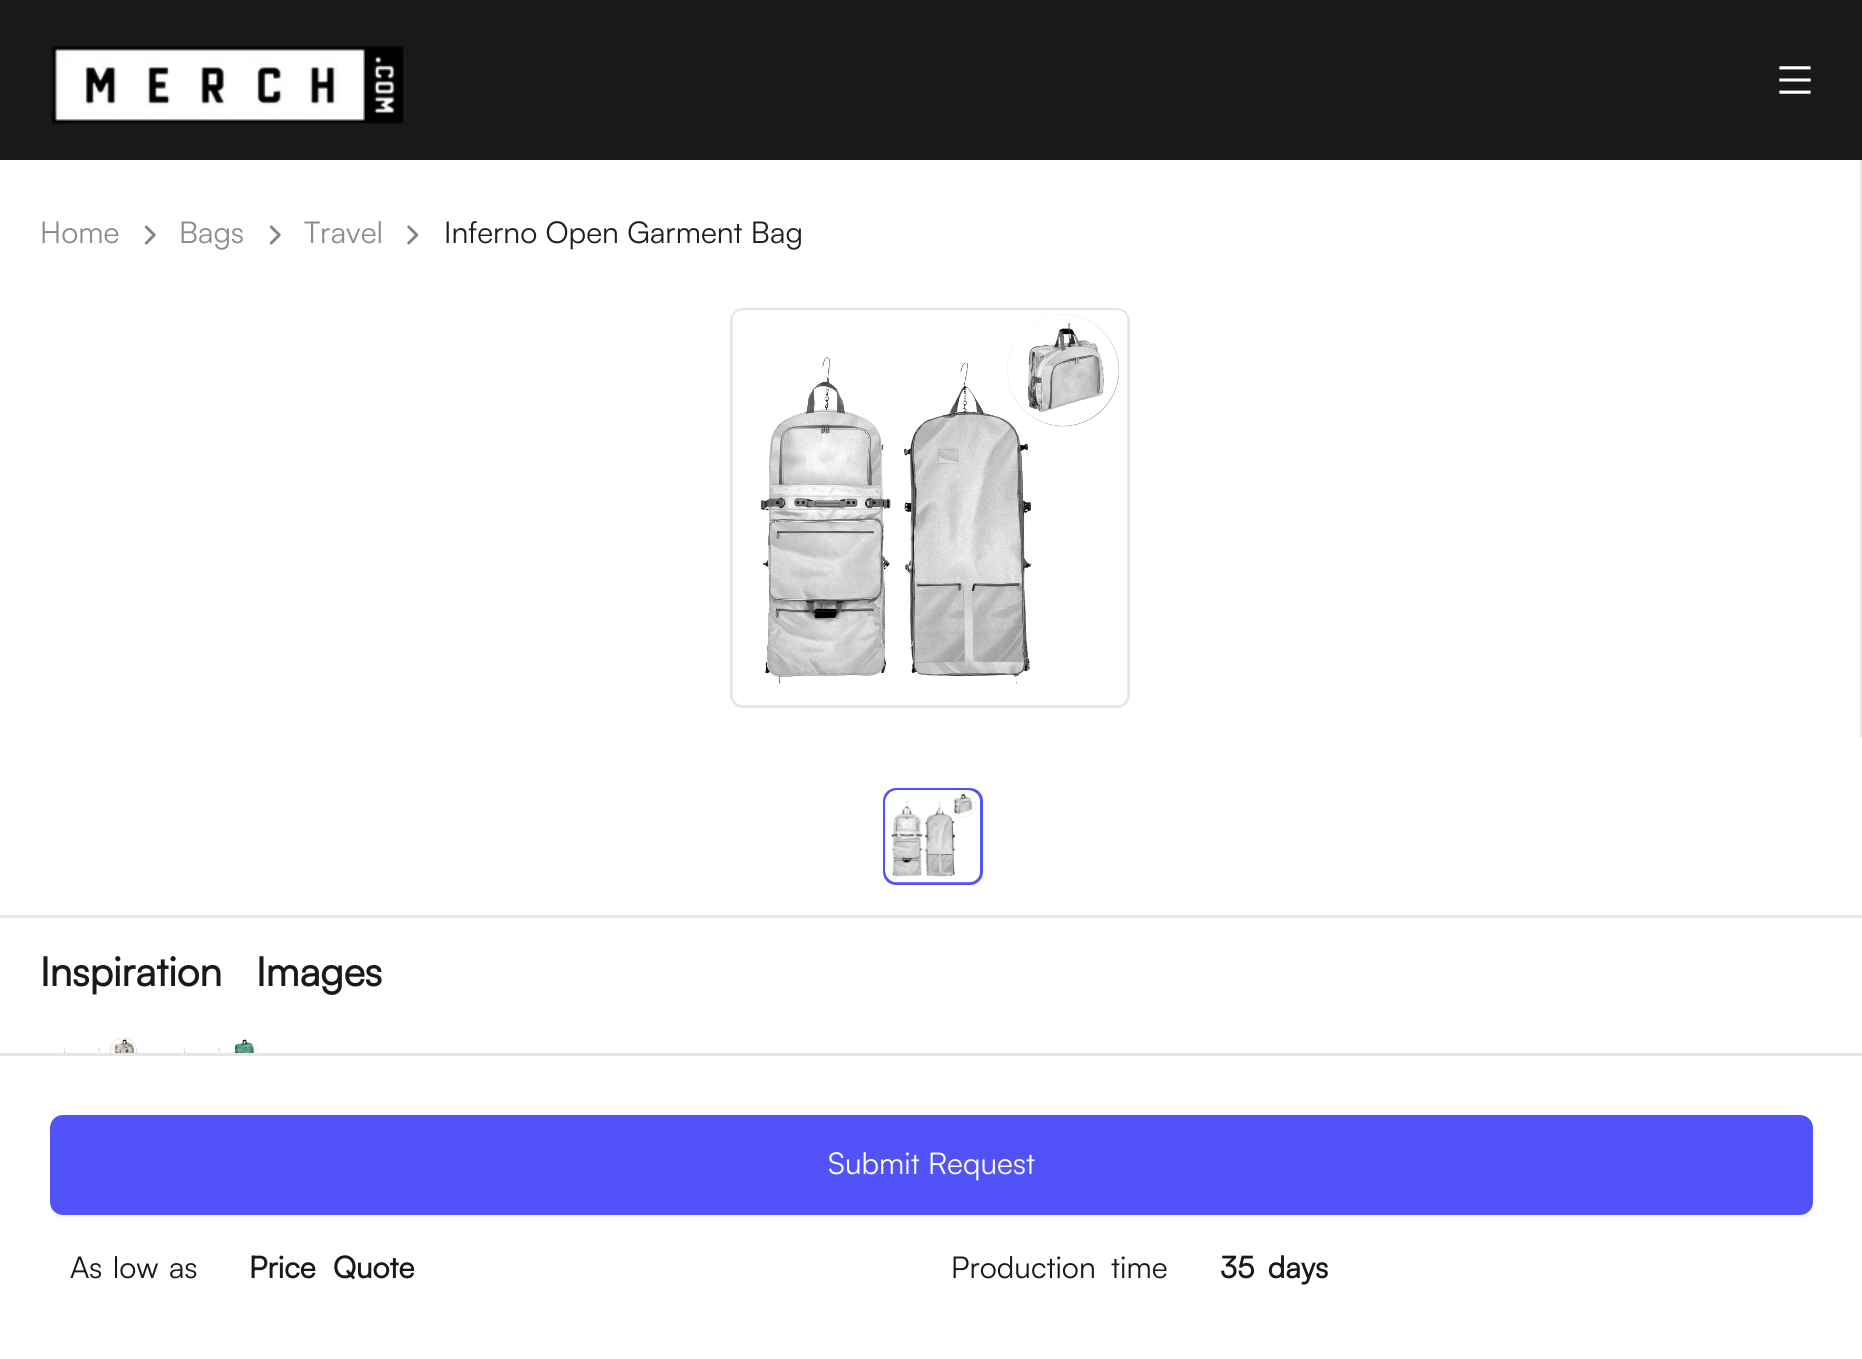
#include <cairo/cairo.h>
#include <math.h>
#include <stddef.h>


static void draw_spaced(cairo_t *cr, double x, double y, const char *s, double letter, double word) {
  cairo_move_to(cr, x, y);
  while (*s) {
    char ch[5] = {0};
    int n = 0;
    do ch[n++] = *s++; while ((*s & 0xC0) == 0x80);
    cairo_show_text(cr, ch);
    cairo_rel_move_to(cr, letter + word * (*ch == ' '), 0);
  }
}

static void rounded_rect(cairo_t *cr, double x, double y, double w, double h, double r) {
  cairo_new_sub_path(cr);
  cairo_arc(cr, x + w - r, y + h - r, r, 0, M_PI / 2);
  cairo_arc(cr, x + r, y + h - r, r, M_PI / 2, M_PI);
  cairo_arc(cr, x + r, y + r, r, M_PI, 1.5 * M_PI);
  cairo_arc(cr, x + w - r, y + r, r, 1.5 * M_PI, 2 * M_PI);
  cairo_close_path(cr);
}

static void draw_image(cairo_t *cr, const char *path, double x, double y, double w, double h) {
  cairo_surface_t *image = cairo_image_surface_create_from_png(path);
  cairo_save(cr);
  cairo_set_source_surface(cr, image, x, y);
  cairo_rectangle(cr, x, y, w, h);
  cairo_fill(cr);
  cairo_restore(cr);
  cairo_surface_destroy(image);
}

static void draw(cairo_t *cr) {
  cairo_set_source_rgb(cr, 25 / 255.0, 25 / 255.0, 25 / 255.0);
  cairo_paint(cr);
  draw_image(cr, "images/1.png", 51, 46, 353, 78);
  draw_image(cr, "images/2.png", 1779, 66, 32, 28);
  cairo_set_source_rgb(cr, 1, 1, 1);
  cairo_rectangle(cr, 0, 160, 1862, 893);
  cairo_fill(cr);
  cairo_set_source_rgb(cr, 230 / 255.0, 230 / 255.0, 230 / 255.0);
  cairo_rectangle(cr, 1860, 160, 2, 578);
  cairo_fill(cr);
  draw_image(cr, "images/3.png", 144, 225, 12, 20);
  draw_image(cr, "images/3.png", 269, 225, 12, 20);
  draw_image(cr, "images/4.png", 407, 225, 12, 20);
  rounded_rect(cr, 731.5, 309.5, 397, 397, 11.5);
  cairo_set_line_width(cr, 3);
  cairo_stroke(cr);
  draw_image(cr, "images/5.png", 732, 310, 396, 395);
  rounded_rect(cr, 884.5, 789.5, 97, 94, 11.5);
  cairo_set_source_rgb(cr, 82 / 255.0, 82 / 255.0, 249 / 255.0);
  cairo_stroke(cr);
  draw_image(cr, "images/6.png", 885, 790, 92, 93);
  cairo_set_source_rgb(cr, 230 / 255.0, 230 / 255.0, 230 / 255.0);
  cairo_rectangle(cr, 0, 915, 1862, 3);
  cairo_fill(cr);
  draw_image(cr, "images/7.png", 63, 1037, 74, 16);
  draw_image(cr, "images/8.png", 167, 1037, 91, 16);
  cairo_set_source_rgb(cr, 1, 1, 1);
  cairo_rectangle(cr, 0, 1056, 1862, 303);
  cairo_fill(cr);
  cairo_set_source_rgb(cr, 230 / 255.0, 230 / 255.0, 230 / 255.0);
  cairo_rectangle(cr, 0, 1053, 1862, 3);
  cairo_fill(cr);
  cairo_set_source_rgb(cr, 250 / 255.0, 250 / 255.0, 250 / 255.0);
  cairo_new_path(cr);
  cairo_move_to(cr, 50, 1202);
  cairo_line_to(cr, 50, 1207);
  cairo_curve_to(cr, 50, 1214, 56, 1220, 63, 1220);
  cairo_line_to(cr, 1800, 1220);
  cairo_curve_to(cr, 1807, 1220, 1813, 1214, 1813, 1207);
  cairo_line_to(cr, 1813, 1133);
  cairo_line_to(cr, 1812, 1129);
  cairo_line_to(cr, 1812, 1202);
  cairo_curve_to(cr, 1812, 1209, 1807, 1215, 1800, 1215);
  cairo_line_to(cr, 62, 1215);
  cairo_curve_to(cr, 56, 1215, 50, 1209, 50, 1202);
  cairo_close_path(cr);
  cairo_fill(cr);
  cairo_set_source_rgb(cr, 82 / 255.0, 82 / 255.0, 249 / 255.0);
  rounded_rect(cr, 51.5, 1116.5, 1760, 97, 11.5);
  cairo_fill_preserve(cr);
  cairo_stroke(cr);
  cairo_select_font_face(cr, "Satoshi", CAIRO_FONT_SLANT_NORMAL, CAIRO_FONT_WEIGHT_NORMAL);
  cairo_set_font_size(cr, 30);
  cairo_set_source_rgb(cr, 140 / 255.0, 140 / 255.0, 140 / 255.0);
  cairo_move_to(cr, 40, 243);
  cairo_show_text(cr, "Home");
  cairo_move_to(cr, 179, 243);
  cairo_show_text(cr, "Bags");
  cairo_move_to(cr, 304, 243);
  cairo_show_text(cr, "Travel");
  cairo_set_source_rgb(cr, 31 / 255.0, 31 / 255.0, 31 / 255.0);
  cairo_move_to(cr, 444, 243);
  cairo_show_text(cr, "Inferno Open Garment Bag");
  cairo_select_font_face(cr, "Satoshi", CAIRO_FONT_SLANT_NORMAL, CAIRO_FONT_WEIGHT_BOLD);
  cairo_set_font_size(cr, 40);
  cairo_set_source_rgb(cr, 25 / 255.0, 25 / 255.0, 25 / 255.0);
  draw_spaced(cr, 40, 986, "Inspiration Images", 0, 23);
  cairo_select_font_face(cr, "Satoshi", CAIRO_FONT_SLANT_NORMAL, CAIRO_FONT_WEIGHT_NORMAL);
  cairo_set_font_size(cr, 30);
  cairo_set_source_rgb(cr, 1, 1, 1);
  cairo_move_to(cr, 828, 1174);
  cairo_show_text(cr, "Submit Request");
  cairo_set_source_rgb(cr, 25 / 255.0, 25 / 255.0, 25 / 255.0);
  draw_spaced(cr, 70, 1278, "As low as", 0, 2);
  cairo_select_font_face(cr, "Satoshi", CAIRO_FONT_SLANT_NORMAL, CAIRO_FONT_WEIGHT_BOLD);
  draw_spaced(cr, 249, 1278, "Price Quote", 0, 9);
  cairo_select_font_face(cr, "Satoshi", CAIRO_FONT_SLANT_NORMAL, CAIRO_FONT_WEIGHT_NORMAL);
  draw_spaced(cr, 951, 1278, "Production time", 0, 7);
  cairo_select_font_face(cr, "Satoshi", CAIRO_FONT_SLANT_NORMAL, CAIRO_FONT_WEIGHT_BOLD);
  draw_spaced(cr, 1220, 1278, "35 days", 0, 5);
}

int main(void) {
  cairo_surface_t *surface = cairo_image_surface_create(CAIRO_FORMAT_RGB24, 1862, 1359);
  cairo_t *cr = cairo_create(surface);
  cairo_font_options_t *options = cairo_font_options_create();
  cairo_font_options_set_hint_metrics(options, CAIRO_HINT_METRICS_OFF);
  cairo_font_options_set_hint_style(options, CAIRO_HINT_STYLE_NONE);
  cairo_set_font_options(cr, options);
  cairo_set_miter_limit(cr, 4);
  draw(cr);
  cairo_surface_write_to_png(surface, "out.png");
  cairo_font_options_destroy(options);
  cairo_destroy(cr);
  cairo_surface_destroy(surface);
  return 0;
}
